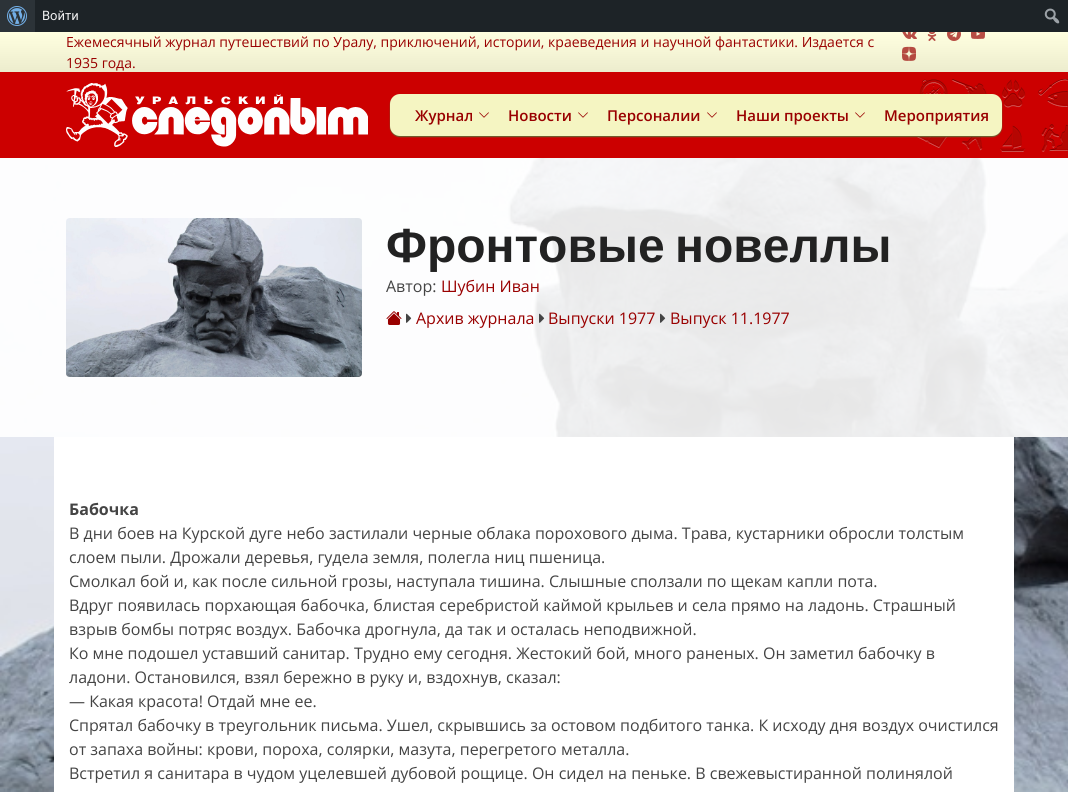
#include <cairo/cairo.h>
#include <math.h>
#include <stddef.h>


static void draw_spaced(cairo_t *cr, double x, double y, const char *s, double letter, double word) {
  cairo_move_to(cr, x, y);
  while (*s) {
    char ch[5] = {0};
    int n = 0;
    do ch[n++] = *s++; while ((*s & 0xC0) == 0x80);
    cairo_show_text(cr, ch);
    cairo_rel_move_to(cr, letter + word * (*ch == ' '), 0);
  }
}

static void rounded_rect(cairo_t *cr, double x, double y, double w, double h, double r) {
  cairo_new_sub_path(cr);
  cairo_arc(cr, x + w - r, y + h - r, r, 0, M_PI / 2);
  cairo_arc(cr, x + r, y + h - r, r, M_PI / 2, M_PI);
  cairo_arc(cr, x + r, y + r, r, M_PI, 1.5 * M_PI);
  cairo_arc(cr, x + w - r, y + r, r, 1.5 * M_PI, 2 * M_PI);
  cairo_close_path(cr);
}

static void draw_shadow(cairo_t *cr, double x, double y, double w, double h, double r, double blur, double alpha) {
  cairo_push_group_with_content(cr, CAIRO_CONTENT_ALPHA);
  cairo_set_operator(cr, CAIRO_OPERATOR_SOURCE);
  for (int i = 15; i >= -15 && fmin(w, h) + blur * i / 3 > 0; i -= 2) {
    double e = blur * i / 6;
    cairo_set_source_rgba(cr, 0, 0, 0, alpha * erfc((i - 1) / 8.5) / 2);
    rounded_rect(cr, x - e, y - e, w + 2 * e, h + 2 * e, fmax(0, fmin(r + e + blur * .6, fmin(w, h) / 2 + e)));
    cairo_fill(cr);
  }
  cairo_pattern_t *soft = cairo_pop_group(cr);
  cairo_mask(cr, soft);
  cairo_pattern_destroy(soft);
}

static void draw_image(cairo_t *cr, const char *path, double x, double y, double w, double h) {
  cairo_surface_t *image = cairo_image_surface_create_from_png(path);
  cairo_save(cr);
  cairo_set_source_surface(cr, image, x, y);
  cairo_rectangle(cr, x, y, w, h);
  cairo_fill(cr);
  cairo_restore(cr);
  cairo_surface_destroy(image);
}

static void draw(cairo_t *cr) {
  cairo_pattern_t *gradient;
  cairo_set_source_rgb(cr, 204 / 255.0, 0, 0);
  cairo_paint(cr);
  cairo_set_source_rgb(cr, 29 / 255.0, 35 / 255.0, 39 / 255.0);
  cairo_rectangle(cr, 35, 0, 1033, 32);
  cairo_fill(cr);
  cairo_set_source_rgb(cr, 44 / 255.0, 51 / 255.0, 56 / 255.0);
  cairo_rectangle(cr, 0, 0, 35, 32);
  cairo_fill(cr);
  draw_image(cr, "images/1.png", 7, 6, 20, 20);
  draw_image(cr, "images/2.png", 1044, 8, 16, 16);
  gradient = cairo_pattern_create_linear(534, 32, 534, 72);
  cairo_pattern_add_color_stop_rgba(gradient, 0, 1, 1, 224 / 255.0, 1);
  cairo_pattern_add_color_stop_rgba(gradient, 1, 236 / 255.0, 236 / 255.0, 205 / 255.0, 1);
  cairo_set_source(cr, gradient);
  cairo_pattern_destroy(gradient);
  cairo_rectangle(cr, 0, 32, 1068, 40);
  cairo_fill(cr);
  draw_image(cr, "images/3.png", 902, 32, 15, 7);
  draw_image(cr, "images/4.png", 927, 32, 10, 9);
  draw_image(cr, "images/5.png", 947, 32, 14, 9);
  draw_image(cr, "images/6.png", 971, 32, 14, 7);
  draw_image(cr, "images/7.png", 902, 46, 14, 15);
  draw_image(cr, "images/8.png", 917, 79, 151, 73);
  draw_image(cr, "images/9.png", 66, 83, 302, 64);
  cairo_set_source_rgb(cr, 102 / 255.0, 102 / 255.0, 51 / 255.0);
  draw_shadow(cr, 390, 95, 612, 42, 10, 0.5, 1);
  cairo_set_source_rgb(cr, 245 / 255.0, 245 / 255.0, 194 / 255.0);
  rounded_rect(cr, 390, 94, 612, 42, 10);
  cairo_fill(cr);
  draw_image(cr, "images/10.png", 479, 112, 10, 6);
  draw_image(cr, "images/10.png", 578, 112, 10, 6);
  draw_image(cr, "images/10.png", 707, 112, 10, 6);
  draw_image(cr, "images/10.png", 855, 112, 10, 6);
  draw_image(cr, "images/11.png", 0, 158, 1068, 634);
  cairo_set_source_rgba(cr, 1, 1, 1, 0.9);
  cairo_rectangle(cr, 0, 158, 1068, 279);
  cairo_fill(cr);
  draw_image(cr, "images/12.png", 66, 218, 296, 159);
  draw_image(cr, "images/13.png", 386, 311, 16, 14);
  draw_image(cr, "images/14.png", 406, 313, 6, 10);
  draw_image(cr, "images/15.png", 539, 313, 6, 10);
  draw_image(cr, "images/16.png", 660, 313, 6, 10);
  cairo_set_source_rgb(cr, 1, 1, 1);
  cairo_rectangle(cr, 54, 437, 960, 355);
  cairo_fill(cr);
  cairo_select_font_face(cr, "Roboto", CAIRO_FONT_SLANT_NORMAL, CAIRO_FONT_WEIGHT_NORMAL);
  cairo_set_font_size(cr, 13);
  cairo_set_source_rgb(cr, 240 / 255.0, 240 / 255.0, 241 / 255.0);
  cairo_move_to(cr, 42, 20);
  cairo_show_text(cr, "Войти");
  cairo_select_font_face(cr, "Open Sans", CAIRO_FONT_SLANT_NORMAL, CAIRO_FONT_WEIGHT_NORMAL);
  cairo_set_font_size(cr, 14);
  cairo_set_source_rgb(cr, 153 / 255.0, 0, 0);
  cairo_move_to(cr, 66, 47);
  cairo_show_text(cr, "Ежемесячный журнал путешествий по Уралу, приключений, истории, краеведения и научной фантастики. Издается с");
  cairo_move_to(cr, 66, 68);
  cairo_show_text(cr, "1935 года.");
  cairo_select_font_face(cr, "Open Sans SemiBold", CAIRO_FONT_SLANT_NORMAL, CAIRO_FONT_WEIGHT_NORMAL);
  cairo_set_font_size(cr, 15);
  cairo_move_to(cr, 415, 121);
  cairo_show_text(cr, "Журнал");
  cairo_move_to(cr, 508, 121);
  cairo_show_text(cr, "Новости");
  cairo_move_to(cr, 607, 121);
  cairo_show_text(cr, "Персоналии");
  cairo_move_to(cr, 736, 121);
  cairo_show_text(cr, "Наши проекты");
  cairo_move_to(cr, 884, 121);
  cairo_show_text(cr, "Мероприятия");
  cairo_select_font_face(cr, "Liberation Sans", CAIRO_FONT_SLANT_NORMAL, CAIRO_FONT_WEIGHT_BOLD);
  cairo_set_font_size(cr, 48);
  cairo_set_source_rgb(cr, 34 / 255.0, 34 / 255.0, 34 / 255.0);
  draw_spaced(cr, 386, 262, "Фронтовые новеллы", 0, -3);
  cairo_select_font_face(cr, "Open Sans", CAIRO_FONT_SLANT_NORMAL, CAIRO_FONT_WEIGHT_NORMAL);
  cairo_set_font_size(cr, 16);
  cairo_set_source_rgb(cr, 68 / 255.0, 68 / 255.0, 68 / 255.0);
  cairo_move_to(cr, 386, 292);
  cairo_show_text(cr, "Автор:");
  cairo_set_source_rgb(cr, 153 / 255.0, 0, 0);
  cairo_move_to(cr, 441, 292);
  cairo_show_text(cr, "Шубин Иван");
  cairo_move_to(cr, 416, 324);
  cairo_show_text(cr, "Архив журнала");
  cairo_move_to(cr, 548, 324);
  cairo_show_text(cr, "Выпуски 1977");
  cairo_move_to(cr, 670, 324);
  cairo_show_text(cr, "Выпуск 11.1977");
  cairo_select_font_face(cr, "Open Sans", CAIRO_FONT_SLANT_NORMAL, CAIRO_FONT_WEIGHT_BOLD);
  cairo_set_source_rgb(cr, 68 / 255.0, 68 / 255.0, 68 / 255.0);
  cairo_move_to(cr, 69, 515);
  cairo_show_text(cr, "Бабочка");
  cairo_select_font_face(cr, "Open Sans", CAIRO_FONT_SLANT_NORMAL, CAIRO_FONT_WEIGHT_NORMAL);
  cairo_move_to(cr, 69, 539);
  cairo_show_text(cr, "В дни боев на Курской дуге небо застилали черные облака порохового дыма. Трава, кустарники обросли толстым");
  cairo_move_to(cr, 69, 563);
  cairo_show_text(cr, "слоем пыли. Дрожали деревья, гудела земля, полегла ниц пшеница.");
  cairo_move_to(cr, 69, 587);
  cairo_show_text(cr, "Смолкал бой и, как после сильной грозы, наступала тишина. Слышные сползали по щекам капли пота.");
  cairo_move_to(cr, 69, 611);
  cairo_show_text(cr, "Вдруг появилась порхающая бабочка, блистая серебристой каймой крыльев и села прямо на ладонь. Страшный");
  cairo_move_to(cr, 69, 635);
  cairo_show_text(cr, "взрыв бомбы потряс воздух. Бабочка дрогнула, да так и осталась неподвижной.");
  cairo_move_to(cr, 69, 659);
  cairo_show_text(cr, "Ко мне подошел уставший санитар. Трудно ему сегодня. Жестокий бой, много раненых. Он заметил бабочку в");
  cairo_move_to(cr, 69, 683);
  cairo_show_text(cr, "ладони. Остановился, взял бережно в руку и, вздохнув, сказал:");
  cairo_move_to(cr, 69, 707);
  cairo_show_text(cr, "— Какая красота! Отдай мне ее.");
  cairo_move_to(cr, 69, 731);
  cairo_show_text(cr, "Спрятал бабочку в треугольник письма. Ушел, скрывшись за остовом подбитого танка. К исходу дня воздух очистился");
  cairo_move_to(cr, 69, 755);
  cairo_show_text(cr, "от запаха войны: крови, пороха, солярки, мазута, перегретого металла.");
  cairo_move_to(cr, 69, 779);
  cairo_show_text(cr, "Встретил я санитара в чудом уцелевшей дубовой рощице. Он сидел на пеньке. В свежевыстиранной полинялой");
}

int main(void) {
  cairo_surface_t *surface = cairo_image_surface_create(CAIRO_FORMAT_RGB24, 1068, 792);
  cairo_t *cr = cairo_create(surface);
  cairo_font_options_t *options = cairo_font_options_create();
  cairo_font_options_set_hint_metrics(options, CAIRO_HINT_METRICS_OFF);
  cairo_font_options_set_hint_style(options, CAIRO_HINT_STYLE_NONE);
  cairo_set_font_options(cr, options);
  cairo_set_miter_limit(cr, 4);
  draw(cr);
  cairo_surface_write_to_png(surface, "out.png");
  cairo_font_options_destroy(options);
  cairo_destroy(cr);
  cairo_surface_destroy(surface);
  return 0;
}
